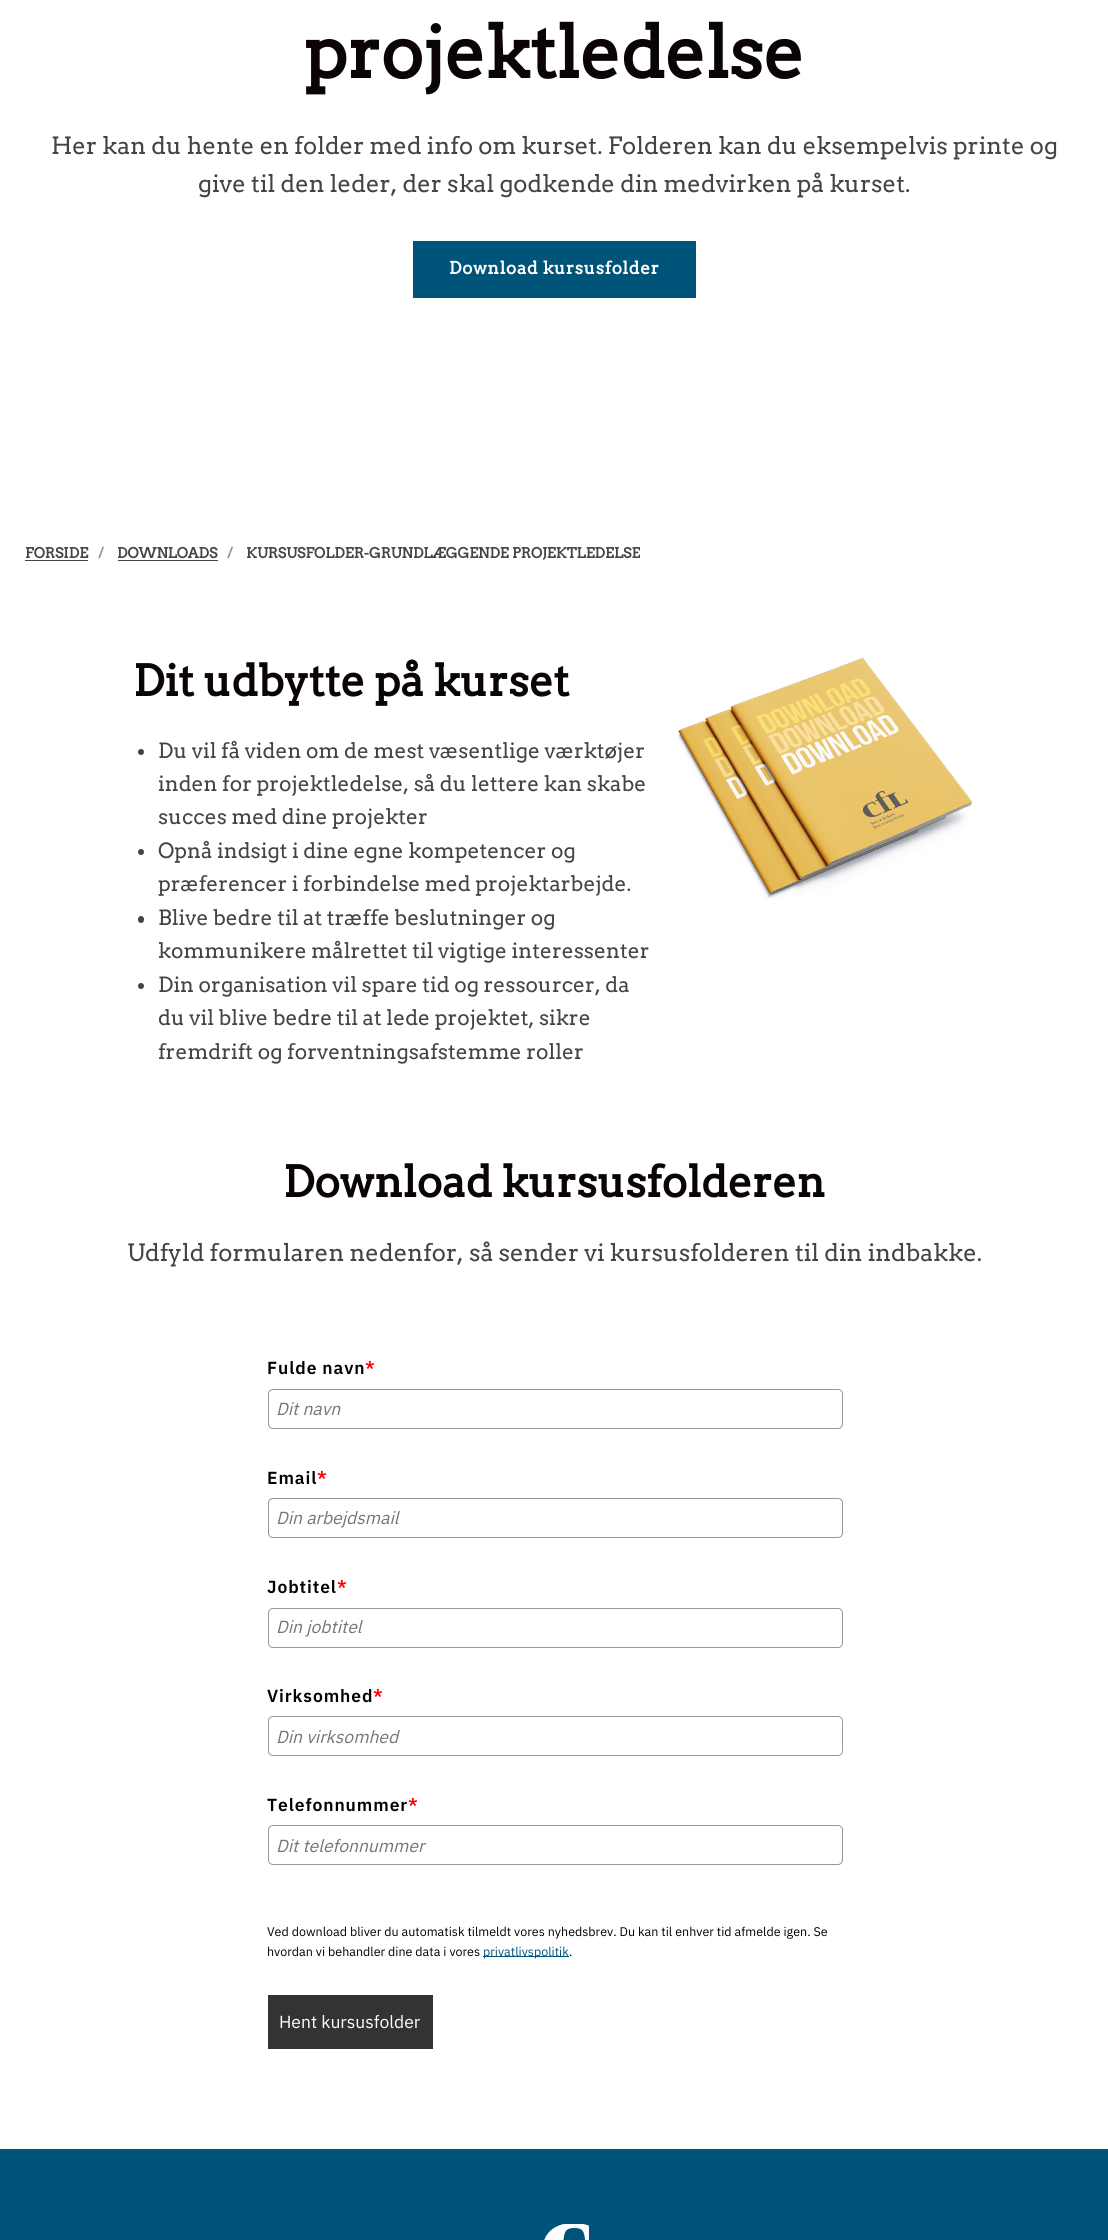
#include <cairo/cairo.h>
#include <math.h>
#include <stddef.h>


static void draw_spaced(cairo_t *cr, double x, double y, const char *s, double letter, double word) {
  cairo_move_to(cr, x, y);
  while (*s) {
    char ch[5] = {0};
    int n = 0;
    do ch[n++] = *s++; while ((*s & 0xC0) == 0x80);
    cairo_show_text(cr, ch);
    cairo_rel_move_to(cr, letter + word * (*ch == ' '), 0);
  }
}

static void rounded_rect(cairo_t *cr, double x, double y, double w, double h, double r) {
  cairo_new_sub_path(cr);
  cairo_arc(cr, x + w - r, y + h - r, r, 0, M_PI / 2);
  cairo_arc(cr, x + r, y + h - r, r, M_PI / 2, M_PI);
  cairo_arc(cr, x + r, y + r, r, M_PI, 1.5 * M_PI);
  cairo_arc(cr, x + w - r, y + r, r, 1.5 * M_PI, 2 * M_PI);
  cairo_close_path(cr);
}

static void draw_image(cairo_t *cr, const char *path, double x, double y, double w, double h) {
  cairo_surface_t *image = cairo_image_surface_create_from_png(path);
  cairo_save(cr);
  cairo_set_source_surface(cr, image, x, y);
  cairo_rectangle(cr, x, y, w, h);
  cairo_fill(cr);
  cairo_restore(cr);
  cairo_surface_destroy(image);
}

static void draw(cairo_t *cr) {
  cairo_set_source_rgb(cr, 1, 1, 1);
  cairo_paint(cr);
  cairo_set_source_rgb(cr, 0, 84 / 255.0, 122 / 255.0);
  cairo_rectangle(cr, 413, 241, 283, 57);
  cairo_fill(cr);
  cairo_set_source_rgb(cr, 68 / 255.0, 68 / 255.0, 68 / 255.0);
  cairo_rectangle(cr, 25, 560, 63, 1);
  cairo_fill(cr);
  cairo_rectangle(cr, 118, 560, 100, 1);
  cairo_fill(cr);
  cairo_arc(cr, 141, 752, 3, 0, 2 * M_PI);
  cairo_fill(cr);
  cairo_arc(cr, 141, 852, 3, 0, 2 * M_PI);
  cairo_fill(cr);
  rounded_rect(cr, 138, 916, 6, 7, 3);
  cairo_fill(cr);
  cairo_arc(cr, 141, 986, 3, 0, 2 * M_PI);
  cairo_fill(cr);
  draw_image(cr, "images/1.png", 678, 657, 295, 242);
  rounded_rect(cr, 268.5, 1389.5, 574, 39, 4.5);
  cairo_set_source_rgb(cr, 151 / 255.0, 151 / 255.0, 151 / 255.0);
  cairo_set_line_width(cr, 1);
  cairo_stroke(cr);
  rounded_rect(cr, 268.5, 1498.5, 574, 39, 4.5);
  cairo_stroke(cr);
  rounded_rect(cr, 268.5, 1608.5, 574, 39, 4.5);
  cairo_stroke(cr);
  rounded_rect(cr, 268.5, 1716.5, 574, 39, 4.5);
  cairo_stroke(cr);
  rounded_rect(cr, 268.5, 1825.5, 574, 39, 4.5);
  cairo_stroke(cr);
  cairo_set_source_rgb(cr, 0, 84 / 255.0, 122 / 255.0);
  cairo_rectangle(cr, 483, 1956, 86, 1);
  cairo_fill(cr);
  cairo_set_source_rgb(cr, 51 / 255.0, 51 / 255.0, 51 / 255.0);
  cairo_rectangle(cr, 268, 1995, 165, 54);
  cairo_fill(cr);
  cairo_set_source_rgb(cr, 0, 84 / 255.0, 122 / 255.0);
  cairo_rectangle(cr, 0, 2149, 1108, 91);
  cairo_fill(cr);
  draw_image(cr, "images/2.png", 544, 2224, 45, 16);
  cairo_select_font_face(cr, "Arvo", CAIRO_FONT_SLANT_NORMAL, CAIRO_FONT_WEIGHT_BOLD);
  cairo_set_font_size(cr, 71.25);
  cairo_set_source_rgb(cr, 10 / 255.0, 4 / 255.0, 4 / 255.0);
  cairo_move_to(cr, 304, 78);
  cairo_show_text(cr, "projektledelse");
  cairo_select_font_face(cr, "Arvo", CAIRO_FONT_SLANT_NORMAL, CAIRO_FONT_WEIGHT_NORMAL);
  cairo_set_font_size(cr, 23.75);
  cairo_set_source_rgb(cr, 68 / 255.0, 68 / 255.0, 68 / 255.0);
  cairo_move_to(cr, 51, 154);
  cairo_show_text(cr, "Her kan du hente en folder med info om kurset. Folderen kan du eksempelvis printe og");
  cairo_move_to(cr, 198, 192);
  cairo_show_text(cr, "give til den leder, der skal godkende din medvirken på kurset.");
  cairo_select_font_face(cr, "Arvo", CAIRO_FONT_SLANT_NORMAL, CAIRO_FONT_WEIGHT_BOLD);
  cairo_set_font_size(cr, 17.1);
  cairo_set_source_rgb(cr, 1, 1, 1);
  draw_spaced(cr, 449, 274, "Download kursusfolder", 0.7, 0);
  cairo_set_font_size(cr, 14.25);
  cairo_set_source_rgb(cr, 68 / 255.0, 68 / 255.0, 68 / 255.0);
  cairo_move_to(cr, 25, 558);
  cairo_show_text(cr, "FORSIDE");
  cairo_set_source_rgb(cr, 143 / 255.0, 143 / 255.0, 143 / 255.0);
  cairo_move_to(cr, 98, 558);
  cairo_show_text(cr, "/");
  cairo_set_source_rgb(cr, 68 / 255.0, 68 / 255.0, 68 / 255.0);
  cairo_move_to(cr, 117, 558);
  cairo_show_text(cr, "DOWNLOADS");
  cairo_set_source_rgb(cr, 143 / 255.0, 143 / 255.0, 143 / 255.0);
  cairo_move_to(cr, 227, 558);
  cairo_show_text(cr, "/");
  cairo_set_source_rgb(cr, 68 / 255.0, 68 / 255.0, 68 / 255.0);
  cairo_move_to(cr, 246, 558);
  cairo_show_text(cr, "KURSUSFOLDER-GRUNDLÆGGENDE PROJEKTLEDELSE");
  cairo_set_font_size(cr, 42.75);
  cairo_set_source_rgb(cr, 10 / 255.0, 4 / 255.0, 4 / 255.0);
  cairo_move_to(cr, 133, 696);
  cairo_show_text(cr, "Dit udbytte på kurset");
  cairo_select_font_face(cr, "Arvo", CAIRO_FONT_SLANT_NORMAL, CAIRO_FONT_WEIGHT_NORMAL);
  cairo_set_font_size(cr, 20.9);
  cairo_set_source_rgb(cr, 68 / 255.0, 68 / 255.0, 68 / 255.0);
  cairo_move_to(cr, 158, 758);
  cairo_show_text(cr, "Du vil få viden om de mest væsentlige værktøjer");
  cairo_move_to(cr, 158, 791);
  cairo_show_text(cr, "inden for projektledelse, så du lettere kan skabe");
  cairo_move_to(cr, 158, 824);
  cairo_show_text(cr, "succes med dine projekter");
  cairo_move_to(cr, 158, 858);
  cairo_show_text(cr, "Opnå indsigt i dine egne kompetencer og");
  cairo_move_to(cr, 158, 891);
  cairo_show_text(cr, "præferencer i forbindelse med projektarbejde.");
  cairo_move_to(cr, 158, 925);
  cairo_show_text(cr, "Blive bedre til at træffe beslutninger og");
  cairo_move_to(cr, 158, 958);
  cairo_show_text(cr, "kommunikere målrettet til vigtige interessenter");
  cairo_move_to(cr, 158, 992);
  cairo_show_text(cr, "Din organisation vil spare tid og ressourcer, da");
  cairo_move_to(cr, 158, 1025);
  cairo_show_text(cr, "du vil blive bedre til at lede projektet, sikre");
  cairo_move_to(cr, 158, 1059);
  cairo_show_text(cr, "fremdrift og forventningsafstemme roller");
  cairo_select_font_face(cr, "Arvo", CAIRO_FONT_SLANT_NORMAL, CAIRO_FONT_WEIGHT_BOLD);
  cairo_set_font_size(cr, 42.75);
  cairo_set_source_rgb(cr, 10 / 255.0, 4 / 255.0, 4 / 255.0);
  cairo_move_to(cr, 283, 1197);
  cairo_show_text(cr, "Download kursusfolderen");
  cairo_select_font_face(cr, "Arvo", CAIRO_FONT_SLANT_NORMAL, CAIRO_FONT_WEIGHT_NORMAL);
  cairo_set_font_size(cr, 23.75);
  cairo_set_source_rgb(cr, 68 / 255.0, 68 / 255.0, 68 / 255.0);
  cairo_move_to(cr, 127, 1261);
  cairo_show_text(cr, "Udfyld formularen nedenfor, så sender vi kursusfolderen til din indbakke.");
  cairo_select_font_face(cr, "IBM Plex Sans SemiBold", CAIRO_FONT_SLANT_NORMAL, CAIRO_FONT_WEIGHT_NORMAL);
  cairo_set_font_size(cr, 17.5);
  cairo_set_source_rgb(cr, 0, 0, 0);
  draw_spaced(cr, 267, 1374, "Fulde navn", 0.9, 0);
  cairo_set_source_rgb(cr, 1, 0, 0);
  draw_spaced(cr, 365, 1374, "*", 0.9, 0);
  cairo_select_font_face(cr, "IBM Plex Sans", CAIRO_FONT_SLANT_ITALIC, CAIRO_FONT_WEIGHT_NORMAL);
  cairo_set_source_rgb(cr, 117 / 255.0, 117 / 255.0, 117 / 255.0);
  cairo_move_to(cr, 276, 1415);
  cairo_show_text(cr, "Dit navn");
  cairo_select_font_face(cr, "IBM Plex Sans SemiBold", CAIRO_FONT_SLANT_NORMAL, CAIRO_FONT_WEIGHT_NORMAL);
  cairo_set_source_rgb(cr, 0, 0, 0);
  draw_spaced(cr, 267, 1484, "Email", 0.9, 0);
  cairo_set_source_rgb(cr, 1, 0, 0);
  draw_spaced(cr, 317, 1484, "*", 0.9, 0);
  cairo_select_font_face(cr, "IBM Plex Sans", CAIRO_FONT_SLANT_ITALIC, CAIRO_FONT_WEIGHT_NORMAL);
  cairo_set_source_rgb(cr, 117 / 255.0, 117 / 255.0, 117 / 255.0);
  cairo_move_to(cr, 276, 1524);
  cairo_show_text(cr, "Din arbejdsmail");
  cairo_select_font_face(cr, "IBM Plex Sans SemiBold", CAIRO_FONT_SLANT_NORMAL, CAIRO_FONT_WEIGHT_NORMAL);
  cairo_set_source_rgb(cr, 0, 0, 0);
  draw_spaced(cr, 267, 1593, "Jobtitel", 0.9, 0);
  cairo_set_source_rgb(cr, 1, 0, 0);
  draw_spaced(cr, 337, 1593, "*", 0.9, 0);
  cairo_select_font_face(cr, "IBM Plex Sans", CAIRO_FONT_SLANT_ITALIC, CAIRO_FONT_WEIGHT_NORMAL);
  cairo_set_source_rgb(cr, 117 / 255.0, 117 / 255.0, 117 / 255.0);
  cairo_move_to(cr, 276, 1633);
  cairo_show_text(cr, "Din jobtitel");
  cairo_select_font_face(cr, "IBM Plex Sans SemiBold", CAIRO_FONT_SLANT_NORMAL, CAIRO_FONT_WEIGHT_NORMAL);
  cairo_set_source_rgb(cr, 0, 0, 0);
  draw_spaced(cr, 267, 1702, "Virksomhed", 0.9, 0);
  cairo_set_source_rgb(cr, 1, 0, 0);
  draw_spaced(cr, 373, 1702, "*", 0.9, 0);
  cairo_select_font_face(cr, "IBM Plex Sans", CAIRO_FONT_SLANT_ITALIC, CAIRO_FONT_WEIGHT_NORMAL);
  cairo_set_source_rgb(cr, 117 / 255.0, 117 / 255.0, 117 / 255.0);
  cairo_move_to(cr, 276, 1743);
  cairo_show_text(cr, "Din virksomhed");
  cairo_select_font_face(cr, "IBM Plex Sans SemiBold", CAIRO_FONT_SLANT_NORMAL, CAIRO_FONT_WEIGHT_NORMAL);
  cairo_set_source_rgb(cr, 0, 0, 0);
  draw_spaced(cr, 267, 1811, "Telefonnummer", 0.9, 0);
  cairo_set_source_rgb(cr, 1, 0, 0);
  draw_spaced(cr, 408, 1811, "*", 0.9, 0);
  cairo_select_font_face(cr, "IBM Plex Sans", CAIRO_FONT_SLANT_ITALIC, CAIRO_FONT_WEIGHT_NORMAL);
  cairo_set_source_rgb(cr, 117 / 255.0, 117 / 255.0, 117 / 255.0);
  cairo_move_to(cr, 276, 1852);
  cairo_show_text(cr, "Dit telefonnummer");
  cairo_select_font_face(cr, "IBM Plex Sans", CAIRO_FONT_SLANT_NORMAL, CAIRO_FONT_WEIGHT_NORMAL);
  cairo_set_font_size(cr, 12.5);
  cairo_set_source_rgb(cr, 0, 0, 0);
  cairo_move_to(cr, 267, 1936);
  cairo_show_text(cr, "Ved download bliver du automatisk tilmeldt vores nyhedsbrev. Du kan til enhver tid afmelde igen. Se");
  cairo_move_to(cr, 267, 1956);
  cairo_show_text(cr, "hvordan vi behandler dine data i vores");
  cairo_set_source_rgb(cr, 0, 84 / 255.0, 122 / 255.0);
  cairo_move_to(cr, 483, 1956);
  cairo_show_text(cr, "privatlivspolitik");
  cairo_set_source_rgb(cr, 0, 0, 0);
  cairo_move_to(cr, 569, 1956);
  cairo_show_text(cr, ".");
  cairo_set_font_size(cr, 17.5);
  cairo_set_source_rgb(cr, 1, 1, 1);
  cairo_move_to(cr, 279, 2028);
  cairo_show_text(cr, "Hent kursusfolder");
}

int main(void) {
  cairo_surface_t *surface = cairo_image_surface_create(CAIRO_FORMAT_RGB24, 1108, 2240);
  cairo_t *cr = cairo_create(surface);
  cairo_font_options_t *options = cairo_font_options_create();
  cairo_font_options_set_hint_metrics(options, CAIRO_HINT_METRICS_OFF);
  cairo_font_options_set_hint_style(options, CAIRO_HINT_STYLE_NONE);
  cairo_set_font_options(cr, options);
  cairo_set_miter_limit(cr, 4);
  draw(cr);
  cairo_surface_write_to_png(surface, "out.png");
  cairo_font_options_destroy(options);
  cairo_destroy(cr);
  cairo_surface_destroy(surface);
  return 0;
}
